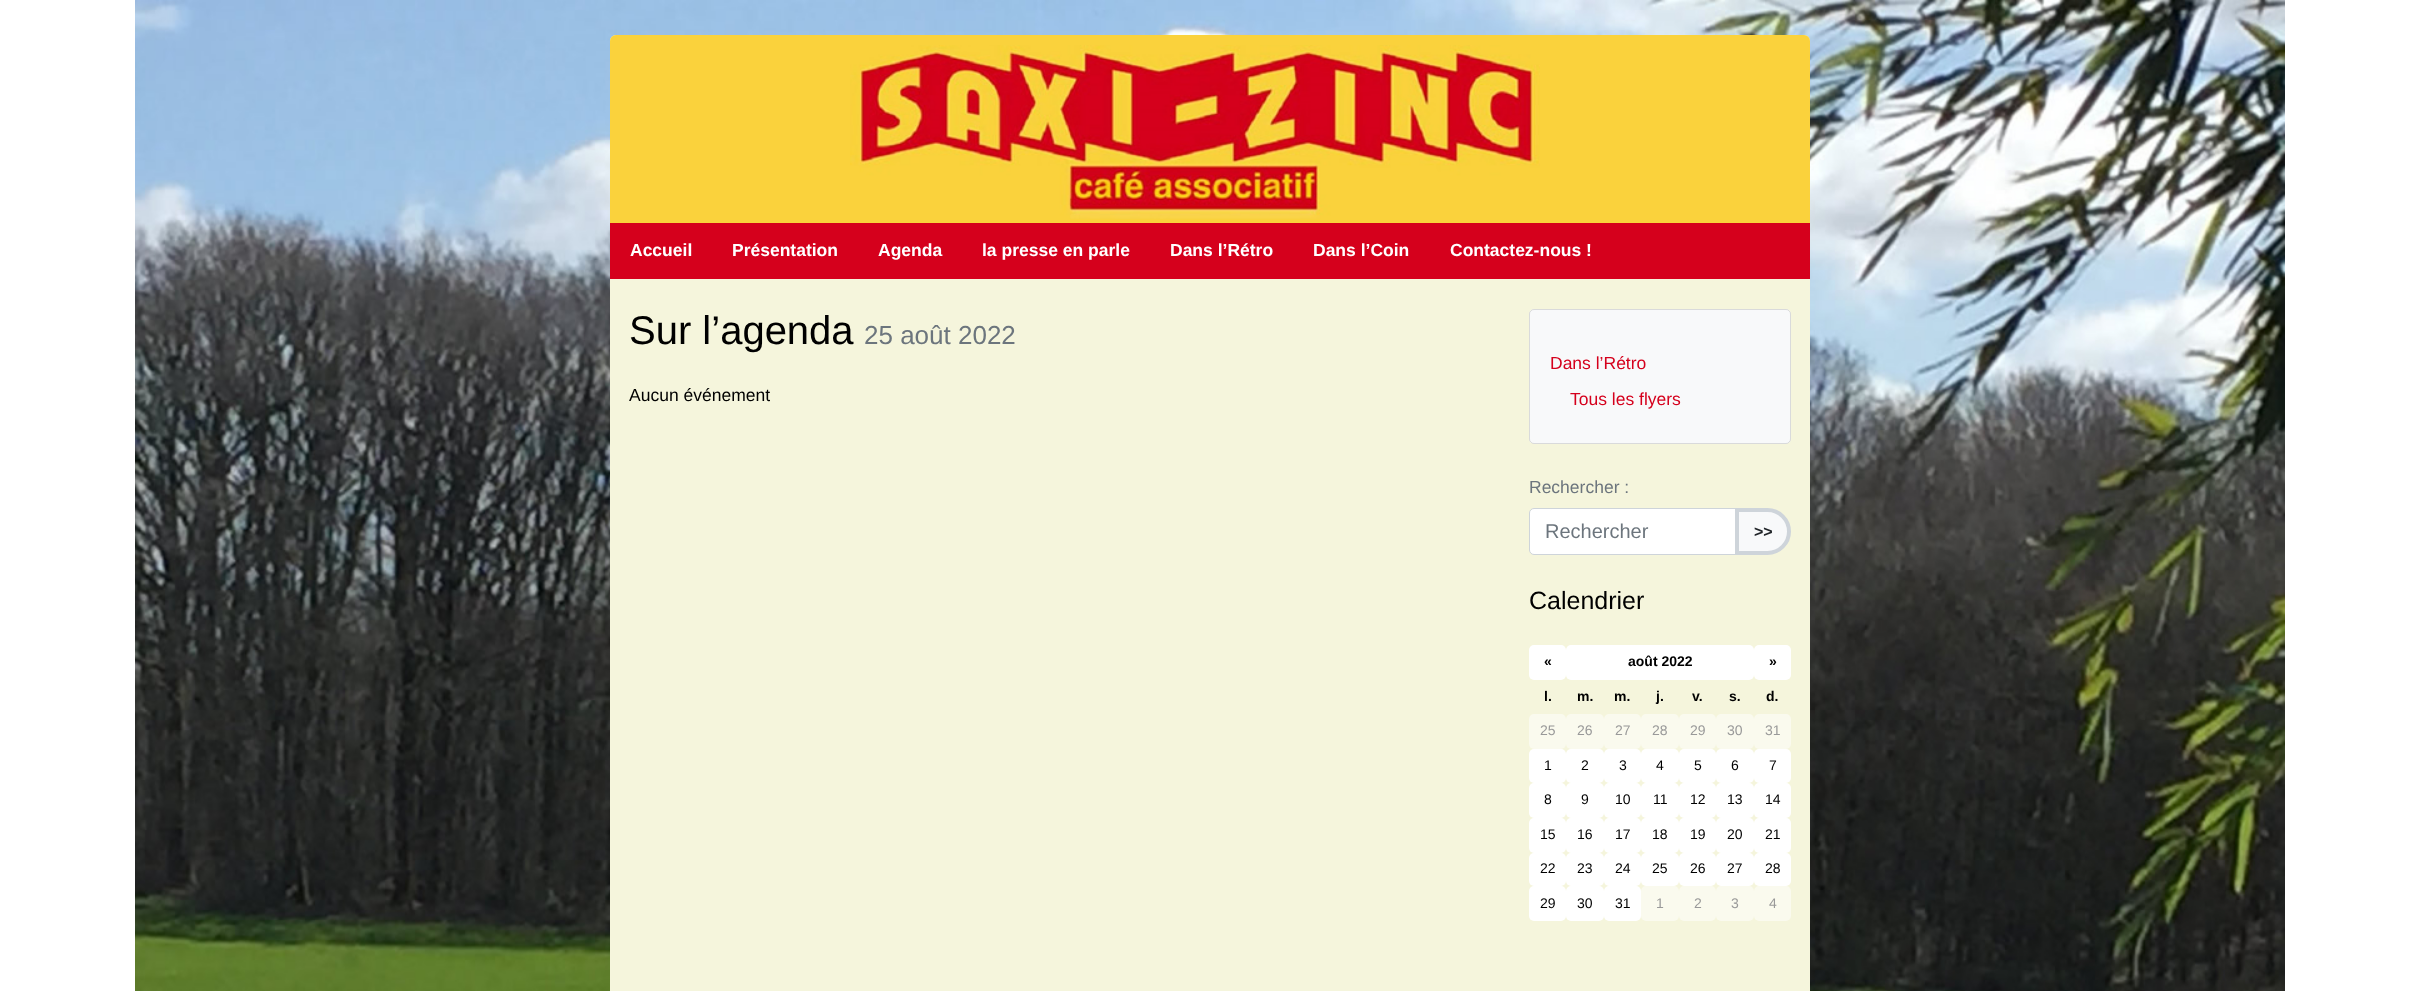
<!DOCTYPE html>
<meta charset="utf-8">
<style>body { margin: 0 } canvas { display: block }</style>
<canvas id="canvas" width="2419" height="991"></canvas>
<img id="img1" src="img_01.png" hidden>
<img id="img2" src="img_02.png" hidden>
<script>
window.onload = function () {
	const canvas = document.getElementById("canvas");
	const ctx = canvas.getContext("2d");
	ctx.miterLimit = 4;
	ctx.fontKerning = "normal";
	function txt(s, x, y) {
		ctx.fillText(s, x, y);
	}
	function fill(x, y, w, h) {
		ctx.fillRect(x, y, w, h);
	}
	function round(x, y, w, h, r) {
		ctx.beginPath();
		ctx.roundRect(x, y, w, h, r);
		ctx.fill();
	}
	function img(id, x, y, w, h) {
		ctx.drawImage(document.getElementById(id), x, y, w, h);
	}

	ctx.fillStyle = "#FFFFFF";
	fill(0, 0, 2419, 991);
	img("img1", 135, 0, 2150, 991);
	ctx.fillStyle = "#F5F5DC";
	round(610, 35, 1200, 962, 6);
	ctx.fillStyle = "#FAD23C";
	ctx.beginPath();
	ctx.roundRect(610, 35, 1200, 188, [6, 6, 0, 0]);
	ctx.fill();
	img("img2", 850, 45, 690, 174);
	ctx.fillStyle = "#D5001C";
	fill(610, 223, 1200, 56);
	ctx.fillStyle = "#F8F9FA";
	round(1529, 309, 262, 135, 5);
	ctx.beginPath();
	ctx.roundRect(1529.5, 309.5, 261, 134, 4.5);
	ctx.strokeStyle = "rgba(0, 0, 0, 0.12)";
	ctx.stroke();
	ctx.fillStyle = "#FFFFFF";
	ctx.beginPath();
	ctx.roundRect(1529.5, 508.5, 206, 46, [4.5, 0, 0, 4.5]);
	ctx.fill();
	ctx.strokeStyle = "#CED4DA";
	ctx.stroke();
	ctx.fillStyle = "#F8F9FA";
	ctx.beginPath();
	ctx.roundRect(1737, 510, 52, 43, [0, 21.5, 21.5, 0]);
	ctx.fill();
	ctx.lineWidth = 4;
	ctx.stroke();
	ctx.fillStyle = "#FFFFFF";
	round(1529, 645, 37, 35, 5);
	round(1566, 645, 188, 35, 5);
	round(1754, 645, 37, 35, 5);
	ctx.fillStyle = "#FAFAEE";
	round(1529, 714, 37, 35, 5);
	round(1566, 714, 38, 35, 5);
	round(1604, 714, 37, 35, 5);
	round(1641, 714, 38, 35, 5);
	round(1679, 714, 37, 35, 5);
	round(1716, 714, 38, 35, 5);
	round(1754, 714, 37, 35, 5);
	ctx.fillStyle = "#FFFFFF";
	round(1529, 749, 37, 34, 5);
	round(1566, 749, 38, 34, 5);
	round(1604, 749, 37, 34, 5);
	round(1641, 749, 38, 34, 5);
	round(1679, 749, 37, 34, 5);
	round(1716, 749, 38, 34, 5);
	round(1754, 749, 37, 34, 5);
	round(1529, 783, 37, 35, 5);
	round(1566, 783, 38, 35, 5);
	round(1604, 783, 37, 35, 5);
	round(1641, 783, 38, 35, 5);
	round(1679, 783, 37, 35, 5);
	round(1716, 783, 38, 35, 5);
	round(1754, 783, 37, 35, 5);
	round(1529, 818, 37, 35, 5);
	round(1566, 818, 38, 35, 5);
	round(1604, 818, 37, 35, 5);
	round(1641, 818, 38, 35, 5);
	round(1679, 818, 37, 35, 5);
	round(1716, 818, 38, 35, 5);
	round(1754, 818, 37, 35, 5);
	round(1529, 853, 37, 33, 5);
	round(1566, 853, 38, 33, 5);
	round(1604, 853, 37, 33, 5);
	round(1641, 853, 38, 33, 5);
	round(1679, 853, 37, 33, 5);
	round(1716, 853, 38, 33, 5);
	round(1754, 853, 37, 33, 5);
	round(1529, 886, 37, 35, 5);
	round(1566, 886, 38, 35, 5);
	round(1604, 886, 37, 35, 5);
	ctx.fillStyle = "#FAFAEE";
	round(1641, 886, 38, 35, 5);
	round(1679, 886, 37, 35, 5);
	round(1716, 886, 38, 35, 5);
	round(1754, 886, 37, 35, 5);
	ctx.font = "bold 17.5px Liberation Sans";
	ctx.fillStyle = "#FFFFFF";
	txt("Accueil", 630, 256);
	txt("Présentation", 732, 256);
	txt("Agenda", 878, 256);
	txt("la presse en parle", 982, 256);
	txt("Dans l’Rétro", 1170, 256);
	txt("Dans l’Coin", 1313, 256);
	txt("Contactez-nous !", 1450, 256);
	ctx.font = "40px Liberation Sans";
	ctx.fillStyle = "#000000";
	txt("Sur l’agenda", 629, 344);
	ctx.font = "26px Liberation Sans";
	ctx.fillStyle = "#6C757D";
	txt("25 août 2022", 864, 344);
	ctx.font = "17.5px Liberation Sans";
	ctx.fillStyle = "#000000";
	txt("Aucun événement", 629, 401);
	ctx.fillStyle = "#D5001C";
	txt("Dans l’Rétro", 1550, 369);
	txt("Tous les flyers", 1570, 405);
	ctx.fillStyle = "#6C757D";
	txt("Rechercher :", 1529, 493);
	ctx.font = "20px Liberation Sans";
	txt("Rechercher", 1545, 538);
	ctx.font = "bold 16px Liberation Sans";
	ctx.fillStyle = "#212529";
	txt(">>", 1754, 537);
	ctx.font = "25px Liberation Sans";
	ctx.fillStyle = "#000000";
	txt("Calendrier", 1529, 609);
	ctx.font = "bold 14px Liberation Sans";
	txt("«", 1544, 666);
	txt("août 2022", 1628, 666);
	txt("»", 1769, 666);
	txt("l.", 1544, 701);
	txt("m.", 1577, 701);
	txt("m.", 1614, 701);
	txt("j.", 1656, 701);
	txt("v.", 1692, 701);
	txt("s.", 1729, 701);
	txt("d.", 1766, 701);
	ctx.font = "14px Liberation Sans";
	ctx.fillStyle = "#999999";
	txt("25", 1540, 735);
	txt("26", 1577, 735);
	txt("27", 1615, 735);
	txt("28", 1652, 735);
	txt("29", 1690, 735);
	txt("30", 1727, 735);
	txt("31", 1765, 735);
	ctx.fillStyle = "#000000";
	txt("1", 1544, 770);
	txt("2", 1581, 770);
	txt("3", 1619, 770);
	txt("4", 1656, 770);
	txt("5", 1694, 770);
	txt("6", 1731, 770);
	txt("7", 1769, 770);
	txt("8", 1544, 804);
	txt("9", 1581, 804);
	txt("10", 1615, 804);
	txt("11", 1653, 804);
	txt("12", 1690, 804);
	txt("13", 1727, 804);
	txt("14", 1765, 804);
	txt("15", 1540, 839);
	txt("16", 1577, 839);
	txt("17", 1615, 839);
	txt("18", 1652, 839);
	txt("19", 1690, 839);
	txt("20", 1727, 839);
	txt("21", 1765, 839);
	txt("22", 1540, 873);
	txt("23", 1577, 873);
	txt("24", 1615, 873);
	txt("25", 1652, 873);
	txt("26", 1690, 873);
	txt("27", 1727, 873);
	txt("28", 1765, 873);
	txt("29", 1540, 908);
	txt("30", 1577, 908);
	txt("31", 1615, 908);
	ctx.fillStyle = "#999999";
	txt("1", 1656, 908);
	txt("2", 1694, 908);
	txt("3", 1731, 908);
	txt("4", 1769, 908);
};
</script>
